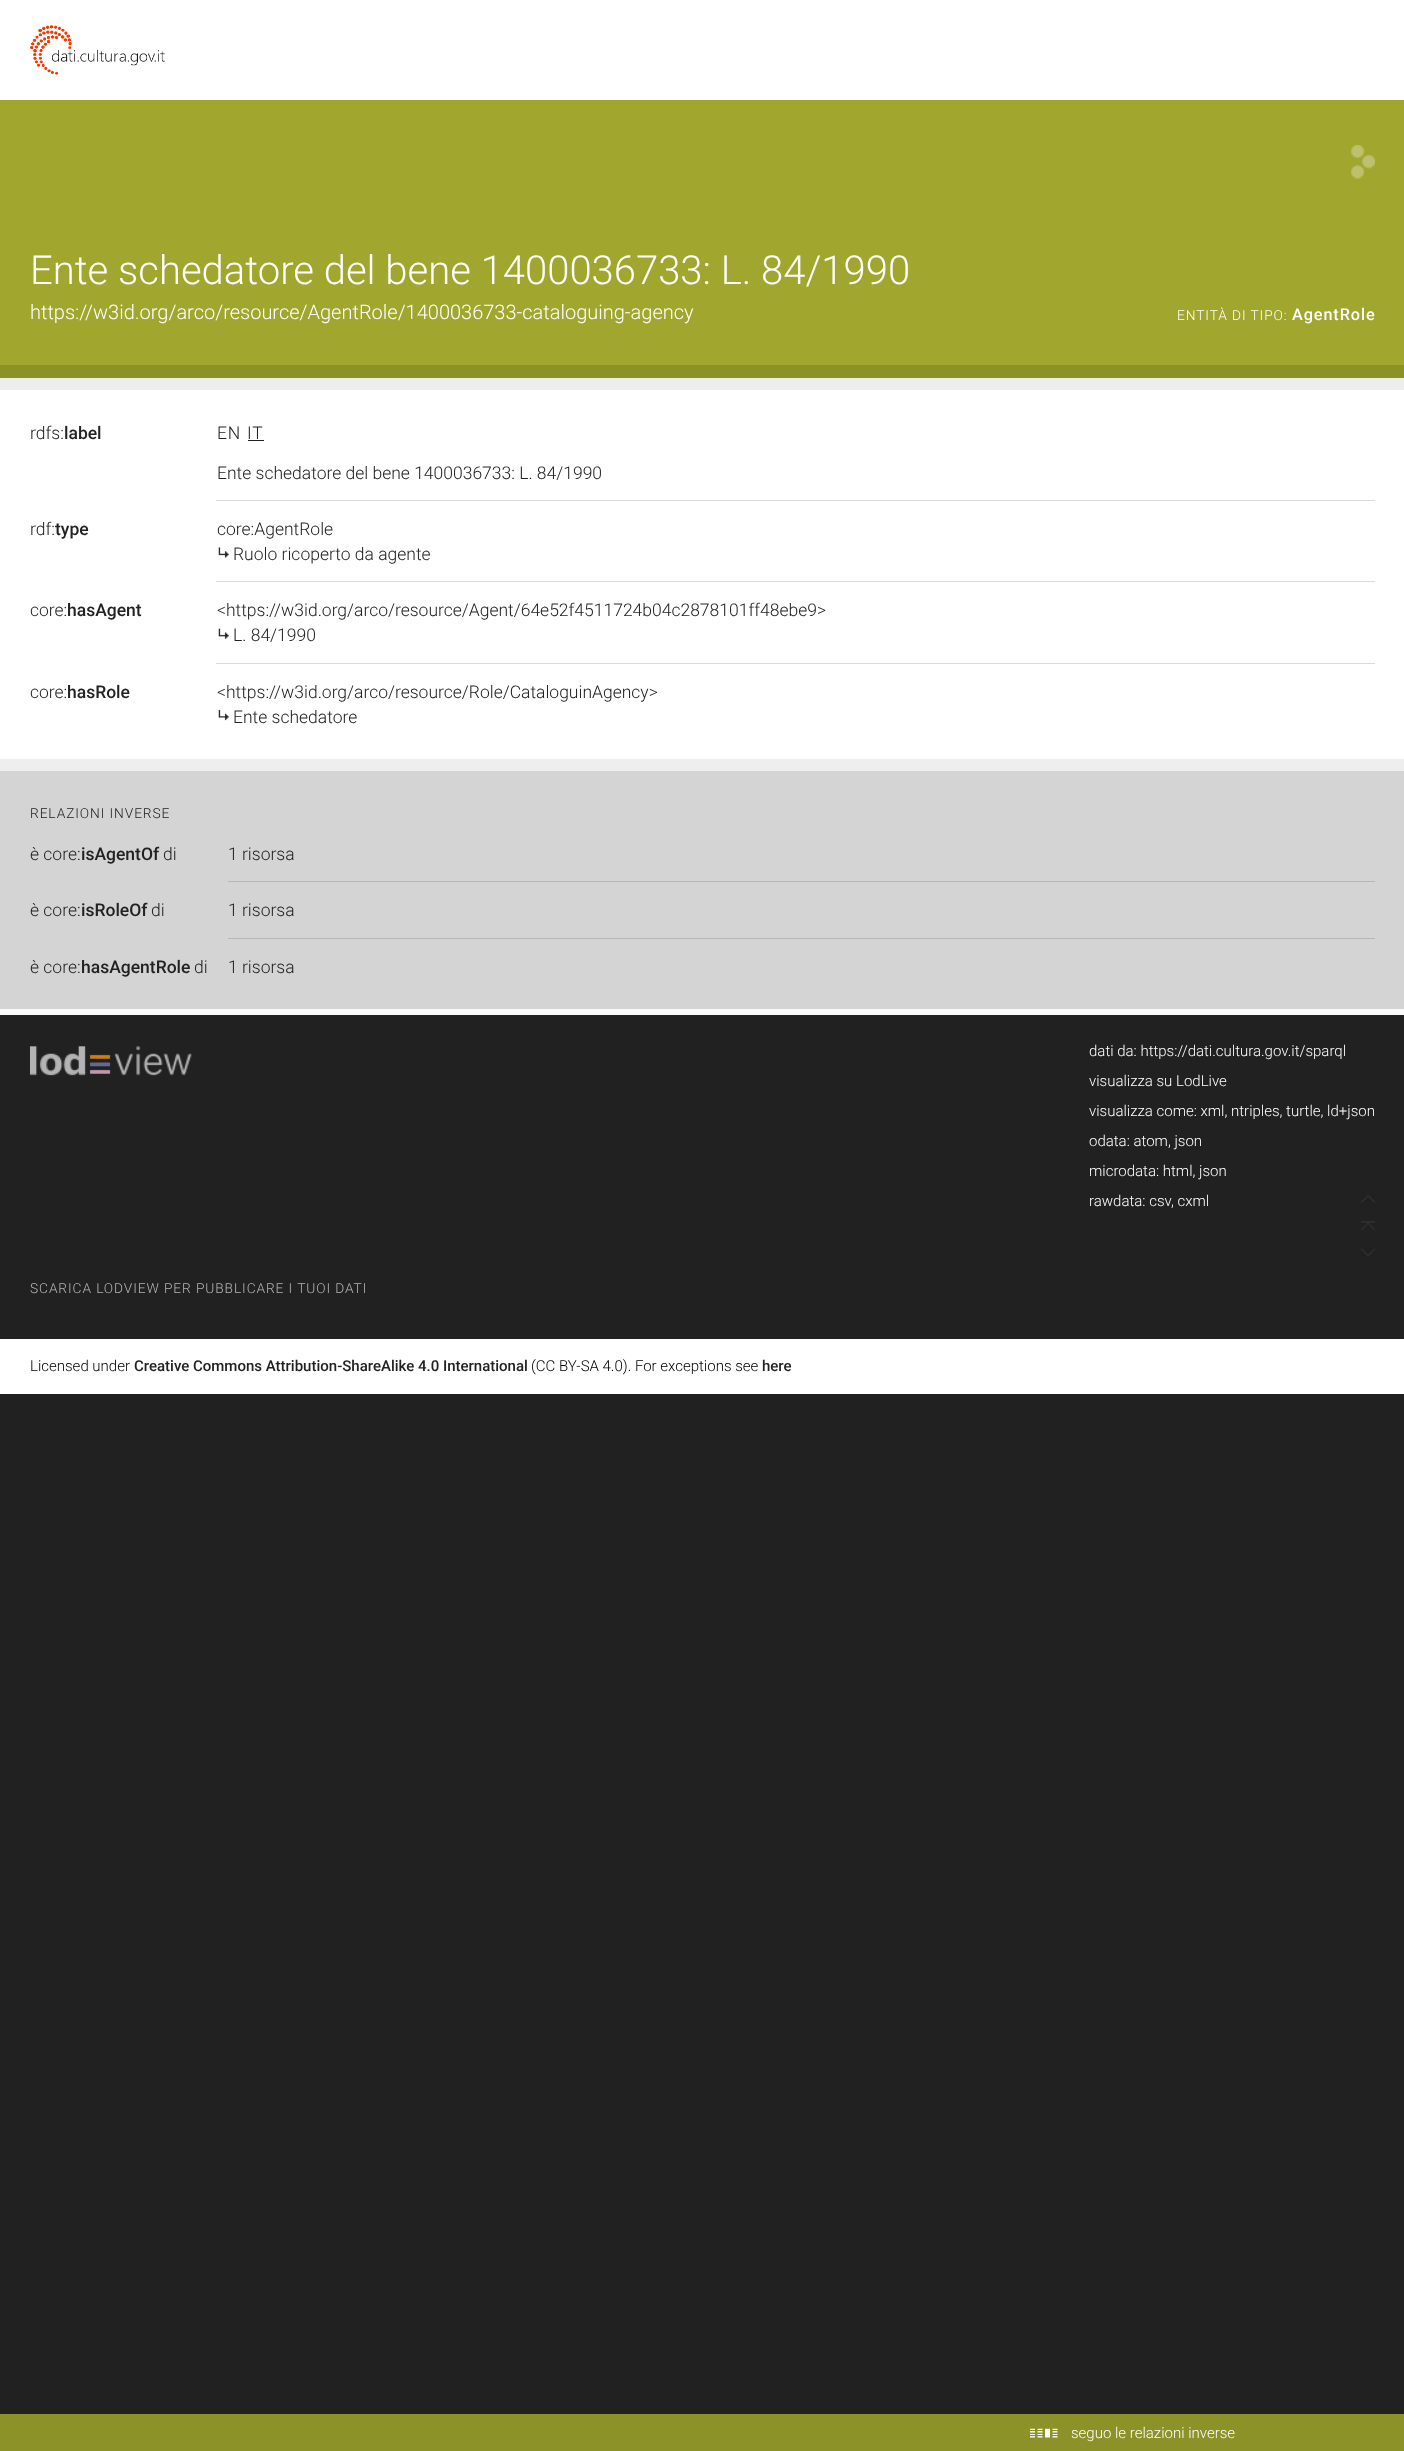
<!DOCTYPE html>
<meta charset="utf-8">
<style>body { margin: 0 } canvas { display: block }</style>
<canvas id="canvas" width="1404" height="2451"></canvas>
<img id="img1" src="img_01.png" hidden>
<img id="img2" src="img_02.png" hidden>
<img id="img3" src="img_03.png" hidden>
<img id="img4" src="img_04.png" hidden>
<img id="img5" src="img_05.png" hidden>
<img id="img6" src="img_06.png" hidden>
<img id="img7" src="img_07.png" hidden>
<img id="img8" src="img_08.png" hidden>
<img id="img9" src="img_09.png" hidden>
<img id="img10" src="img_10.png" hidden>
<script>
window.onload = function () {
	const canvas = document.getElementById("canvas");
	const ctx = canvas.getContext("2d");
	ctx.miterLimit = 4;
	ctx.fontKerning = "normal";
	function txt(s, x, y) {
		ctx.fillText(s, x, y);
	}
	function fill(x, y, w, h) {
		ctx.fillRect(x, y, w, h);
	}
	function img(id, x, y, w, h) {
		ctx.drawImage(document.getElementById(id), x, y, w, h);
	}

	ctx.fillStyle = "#212121";
	fill(0, 0, 1404, 2451);
	ctx.fillStyle = "#FFFFFF";
	fill(0, 0, 1404, 100);
	img("img1", 30, 25, 135, 50);
	ctx.fillStyle = "#A1A72E";
	fill(0, 100, 1404, 265);
	img("img2", 1351, 145, 24, 34);
	ctx.fillStyle = "#8C9128";
	fill(0, 365, 1404, 13);
	ctx.fillStyle = "#EEEEEE";
	fill(0, 378, 1404, 12);
	ctx.fillStyle = "#FFFFFF";
	fill(0, 390, 1404, 369);
	ctx.fillStyle = "#DBDBDB";
	fill(216, 500, 1159, 1);
	ctx.fillStyle = "#212121";
	fill(248, 440, 16, 1);
	ctx.fillStyle = "#DBDBDB";
	fill(216, 581, 1159, 1);
	img("img3", 218, 547, 11, 11);
	fill(216, 663, 1159, 1);
	img("img4", 218, 628, 11, 11);
	img("img5", 218, 710, 11, 11);
	ctx.fillStyle = "#EEEEEE";
	fill(0, 759, 1404, 12);
	ctx.fillStyle = "#D4D4D4";
	fill(0, 771, 1404, 238);
	ctx.fillStyle = "#B6B6B6";
	fill(228, 881, 1147, 1);
	fill(228, 938, 1147, 1);
	ctx.fillStyle = "#FAFAFA";
	fill(0, 1009, 1404, 6);
	img("img6", 30, 1046, 162, 30);
	img("img7", 1361, 1195, 14, 8);
	img("img8", 1361, 1221, 14, 9);
	img("img9", 1361, 1248, 14, 9);
	ctx.fillStyle = "#FFFFFF";
	fill(0, 1339, 1404, 55);
	ctx.fillStyle = "#8C9128";
	fill(0, 2414, 1404, 37);
	img("img10", 1030, 2428, 28, 10);
	ctx.font = "300 40px Roboto";
	ctx.fillStyle = "#FFFFFF";
	txt("Ente schedatore del bene 1400036733: L. 84/1990", 30, 284);
	ctx.font = "300 20px Roboto";
	txt("https://w3id.org/arco/resource/AgentRole/1400036733-cataloguing-agency", 30, 319);
	ctx.letterSpacing = "0.9px";
	ctx.font = "300 13.75px Roboto";
	txt("ENTITÀ DI TIPO:", 1177, 320);
	ctx.font = "500 16.25px Roboto";
	txt("AgentRole", 1292, 320);
	ctx.letterSpacing = "0px";
	ctx.font = "300 17.5px Roboto";
	ctx.fillStyle = "#222222";
	txt("rdfs:", 30, 439);
	ctx.font = "500 17.5px Roboto";
	txt("label", 64, 439);
	ctx.letterSpacing = "0.9px";
	ctx.font = "300 17.5px Roboto";
	txt("EN", 217, 439);
	txt("IT", 247, 439);
	ctx.letterSpacing = "0px";
	txt("Ente schedatore del bene 1400036733: L. 84/1990", 217, 479);
	txt("rdf:", 30, 535);
	ctx.font = "500 17.5px Roboto";
	txt("type", 55, 535);
	ctx.font = "300 17.5px Roboto";
	txt("core:AgentRole", 217, 535);
	txt("Ruolo ricoperto da agente", 233, 560);
	txt("core:", 30, 616);
	ctx.font = "500 17.5px Roboto";
	txt("hasAgent", 67, 616);
	ctx.font = "300 17.5px Roboto";
	txt("<https://w3id.org/arco/resource/Agent/64e52f4511724b04c2878101ff48ebe9>", 217, 616);
	txt("L. 84/1990", 233, 641);
	txt("core:", 30, 698);
	ctx.font = "500 17.5px Roboto";
	txt("hasRole", 67, 698);
	ctx.font = "300 17.5px Roboto";
	txt("<https://w3id.org/arco/resource/Role/CataloguinAgency>", 217, 698);
	txt("Ente schedatore", 233, 723);
	ctx.letterSpacing = "0.9px";
	ctx.font = "300 13.75px Roboto";
	txt("RELAZIONI INVERSE", 30, 818);
	ctx.letterSpacing = "0px";
	ctx.font = "300 17.5px Roboto";
	txt("è core:", 30, 860);
	ctx.font = "500 17.5px Roboto";
	txt("isAgentOf", 81, 860);
	ctx.font = "300 17.5px Roboto";
	txt("di", 163, 860);
	txt("1 risorsa", 228, 860);
	txt("è core:", 30, 916);
	ctx.font = "500 17.5px Roboto";
	txt("isRoleOf", 81, 916);
	ctx.font = "300 17.5px Roboto";
	txt("di", 151, 916);
	txt("1 risorsa", 228, 916);
	txt("è core:", 30, 973);
	ctx.font = "500 17.5px Roboto";
	txt("hasAgentRole", 81, 973);
	ctx.font = "300 17.5px Roboto";
	txt("di", 194, 973);
	txt("1 risorsa", 228, 973);
	ctx.font = "300 15px Roboto";
	ctx.fillStyle = "#FFFFFF";
	txt("dati da: https://dati.cultura.gov.it/sparql", 1089, 1056);
	txt("visualizza su LodLive", 1089, 1086);
	txt("visualizza come: xml, ntriples, turtle, ld+json", 1089, 1116);
	txt("odata: atom, json", 1089, 1146);
	txt("microdata: html, json", 1089, 1176);
	txt("rawdata: csv", 1089, 1206);
	txt(", cxml", 1171, 1206);
	ctx.letterSpacing = "0.9px";
	ctx.font = "300 13.75px Roboto";
	ctx.fillStyle = "#B4B4B4";
	txt("SCARICA LODVIEW PER PUBBLICARE I TUOI DATI", 30, 1293);
	ctx.letterSpacing = "0px";
	ctx.font = "300 15px Roboto";
	ctx.fillStyle = "#000000";
	txt("Licensed under", 30, 1371);
	ctx.font = "500 15px Roboto";
	ctx.fillStyle = "#222222";
	txt("Creative Commons Attribution-ShareAlike 4.0 International", 134, 1371);
	ctx.font = "300 15px Roboto";
	ctx.fillStyle = "#000000";
	txt("(CC BY-SA 4.0). For exceptions see", 531, 1371);
	ctx.font = "500 15px Roboto";
	ctx.fillStyle = "#222222";
	txt("here", 762, 1371);
	ctx.font = "300 15px Roboto";
	ctx.fillStyle = "#FFFFFF";
	txt("seguo le relazioni inverse", 1071, 2438);
};
</script>
